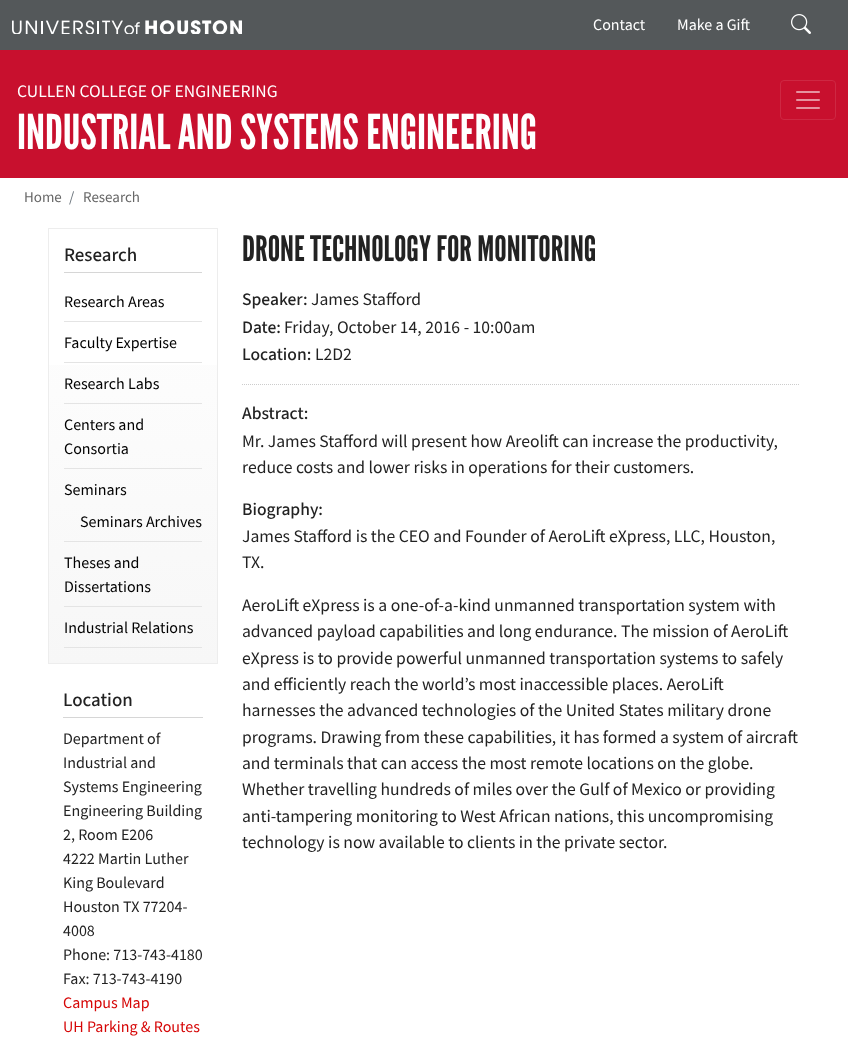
<!DOCTYPE html>
<meta charset="utf-8">
<style>body { margin: 0 } canvas { display: block }</style>
<canvas id="canvas" width="848" height="1037"></canvas>
<img id="img1" src="img_01.png" hidden>
<img id="img2" src="img_02.png" hidden>
<img id="img3" src="img_03.png" hidden>
<script>
window.onload = function () {
	const canvas = document.getElementById("canvas");
	const ctx = canvas.getContext("2d");
	ctx.miterLimit = 4;
	ctx.fontKerning = "normal";
	function txt(s, x, y) {
		ctx.fillText(s, x, y);
	}
	function fill(x, y, w, h) {
		ctx.fillRect(x, y, w, h);
	}
	function img(id, x, y, w, h) {
		ctx.drawImage(document.getElementById(id), x, y, w, h);
	}
	let gradient;

	ctx.fillStyle = "#FFFFFF";
	fill(0, 0, 848, 1037);
	ctx.fillStyle = "#54585A";
	fill(0, 0, 848, 50);
	img("img1", 12, 20, 230, 14);
	img("img2", 791, 14, 20, 20);
	ctx.fillStyle = "#C8102E";
	fill(0, 50, 848, 128);
	ctx.beginPath();
	ctx.roundRect(780.5, 80.5, 55, 39, 3.5);
	ctx.strokeStyle = "#CE2843";
	ctx.stroke();
	img("img3", 796, 91, 24, 18);
	gradient = ctx.createLinearGradient(133, 663, 133, 229);
	gradient.addColorStop(0, "#F7F7F7");
	gradient.addColorStop(1, "#FFFFFF");
	ctx.fillStyle = gradient;
	fill(49, 365, 168, 298);
	ctx.strokeStyle = "#EDEDED";
	ctx.strokeRect(48.5, 228.5, 169, 435);
	ctx.fillStyle = "#D6D6D6";
	fill(64, 272, 138, 1);
	ctx.fillStyle = "#E4E4E4";
	fill(64, 321, 138, 1);
	fill(64, 362, 138, 1);
	fill(64, 403, 138, 1);
	fill(64, 468, 138, 1);
	fill(64, 541, 138, 1);
	fill(64, 606, 138, 1);
	fill(64, 647, 138, 1);
	ctx.fillStyle = "#D6D6D6";
	fill(63, 717, 140, 1);
	ctx.beginPath();
	ctx.moveTo(242, 384.5);
	ctx.lineTo(800, 384.5);
	ctx.strokeStyle = "#CCCCCC";
	ctx.setLineDash([1, 1]);
	ctx.stroke();
	ctx.font = "16px Source Sans Pro";
	ctx.fillStyle = "#FFFFFF";
	txt("Contact", 593, 30);
	txt("Make a Gift", 677, 30);
	ctx.font = "17.6px Source Sans Pro";
	txt("CULLEN COLLEGE OF ENGINEERING", 17, 97);
	ctx.font = "48px League Gothic";
	txt("INDUSTRIAL AND SYSTEMS ENGINEERING", 17, 149);
	ctx.font = "15px Source Sans Pro";
	ctx.fillStyle = "#666666";
	txt("Home", 24, 202);
	ctx.fillStyle = "#6C757D";
	txt("/", 69, 202);
	ctx.fillStyle = "#666666";
	txt("Research", 83, 202);
	ctx.font = "500 19px 'Source Sans 3'";
	ctx.fillStyle = "#222222";
	txt("Research", 64, 261);
	ctx.font = "16px Source Sans Pro";
	ctx.fillStyle = "#000000";
	txt("Research Areas", 64, 307);
	txt("Faculty Expertise", 64, 348);
	txt("Research Labs", 64, 389);
	txt("Centers and", 64, 430);
	txt("Consortia", 64, 454);
	txt("Seminars", 64, 495);
	txt("Seminars Archives", 80, 527);
	txt("Theses and", 64, 568);
	txt("Dissertations", 64, 592);
	txt("Industrial Relations", 64, 633);
	ctx.font = "500 19px 'Source Sans 3'";
	ctx.fillStyle = "#222222";
	txt("Location", 63, 706);
	ctx.font = "16px Source Sans Pro";
	txt("Department of", 63, 744);
	txt("Industrial and", 63, 768);
	txt("Systems Engineering", 63, 792);
	txt("Engineering Building", 63, 816);
	txt("2, Room E206", 63, 840);
	txt("4222 Martin Luther", 63, 864);
	txt("King Boulevard", 63, 888);
	txt("Houston TX 77204-", 63, 912);
	txt("4008", 63, 936);
	txt("Phone: 713-743-4180", 63, 960);
	txt("Fax: 713-743-4190", 63, 984);
	ctx.fillStyle = "#D60606";
	txt("Campus Map", 63, 1008);
	txt("UH Parking & Routes", 63, 1032);
	ctx.font = "35.1px League Gothic";
	ctx.fillStyle = "#222222";
	txt("DRONE TECHNOLOGY FOR MONITORING", 242, 261);
	ctx.font = "500 17.6px 'Source Sans 3'";
	txt("Speaker", 242, 305);
	txt(":", 303, 305);
	ctx.font = "17.6px Source Sans Pro";
	txt("James Stafford", 311, 305);
	ctx.font = "500 17.6px 'Source Sans 3'";
	txt("Date:", 242, 333);
	ctx.font = "17.6px Source Sans Pro";
	txt("Friday, October 14, 2016 - 10:00am", 284, 333);
	ctx.font = "500 17.6px 'Source Sans 3'";
	txt("Location:", 242, 360);
	ctx.font = "17.6px Source Sans Pro";
	txt("L2D2", 315, 360);
	ctx.font = "500 17.6px 'Source Sans 3'";
	txt("Abstract:", 242, 419);
	ctx.font = "17.6px Source Sans Pro";
	txt("Mr. James Stafford will present how Areolift can increase the productivity,", 242, 447);
	txt("reduce costs and lower risks in operations for their customers.", 242, 473);
	ctx.font = "500 17.6px 'Source Sans 3'";
	txt("Biography:", 242, 515);
	ctx.font = "17.6px Source Sans Pro";
	txt("James Stafford is the CEO and Founder of AeroLift eXpress, LLC, Houston,", 242, 542);
	txt("TX.", 242, 568);
	txt("AeroLift eXpress is a one-of-a-kind unmanned transportation system with", 242, 611);
	txt("advanced payload capabilities and long endurance. The mission of AeroLift", 242, 637);
	txt("eXpress is to provide powerful unmanned transportation systems to safely", 242, 664);
	txt("and efficiently reach the world’s most inaccessible places. AeroLift", 242, 690);
	txt("harnesses the advanced technologies of the United States military drone", 242, 716);
	txt("programs. Drawing from these capabilities, it has formed a system of aircraft", 242, 743);
	txt("and terminals that can access the most remote locations on the globe.", 242, 769);
	txt("Whether travelling hundreds of miles over the Gulf of Mexico or providing", 242, 795);
	txt("anti-tampering monitoring to West African nations, this uncompromising", 242, 822);
	txt("technology is now available to clients in the private sector.", 242, 848);
};
</script>
